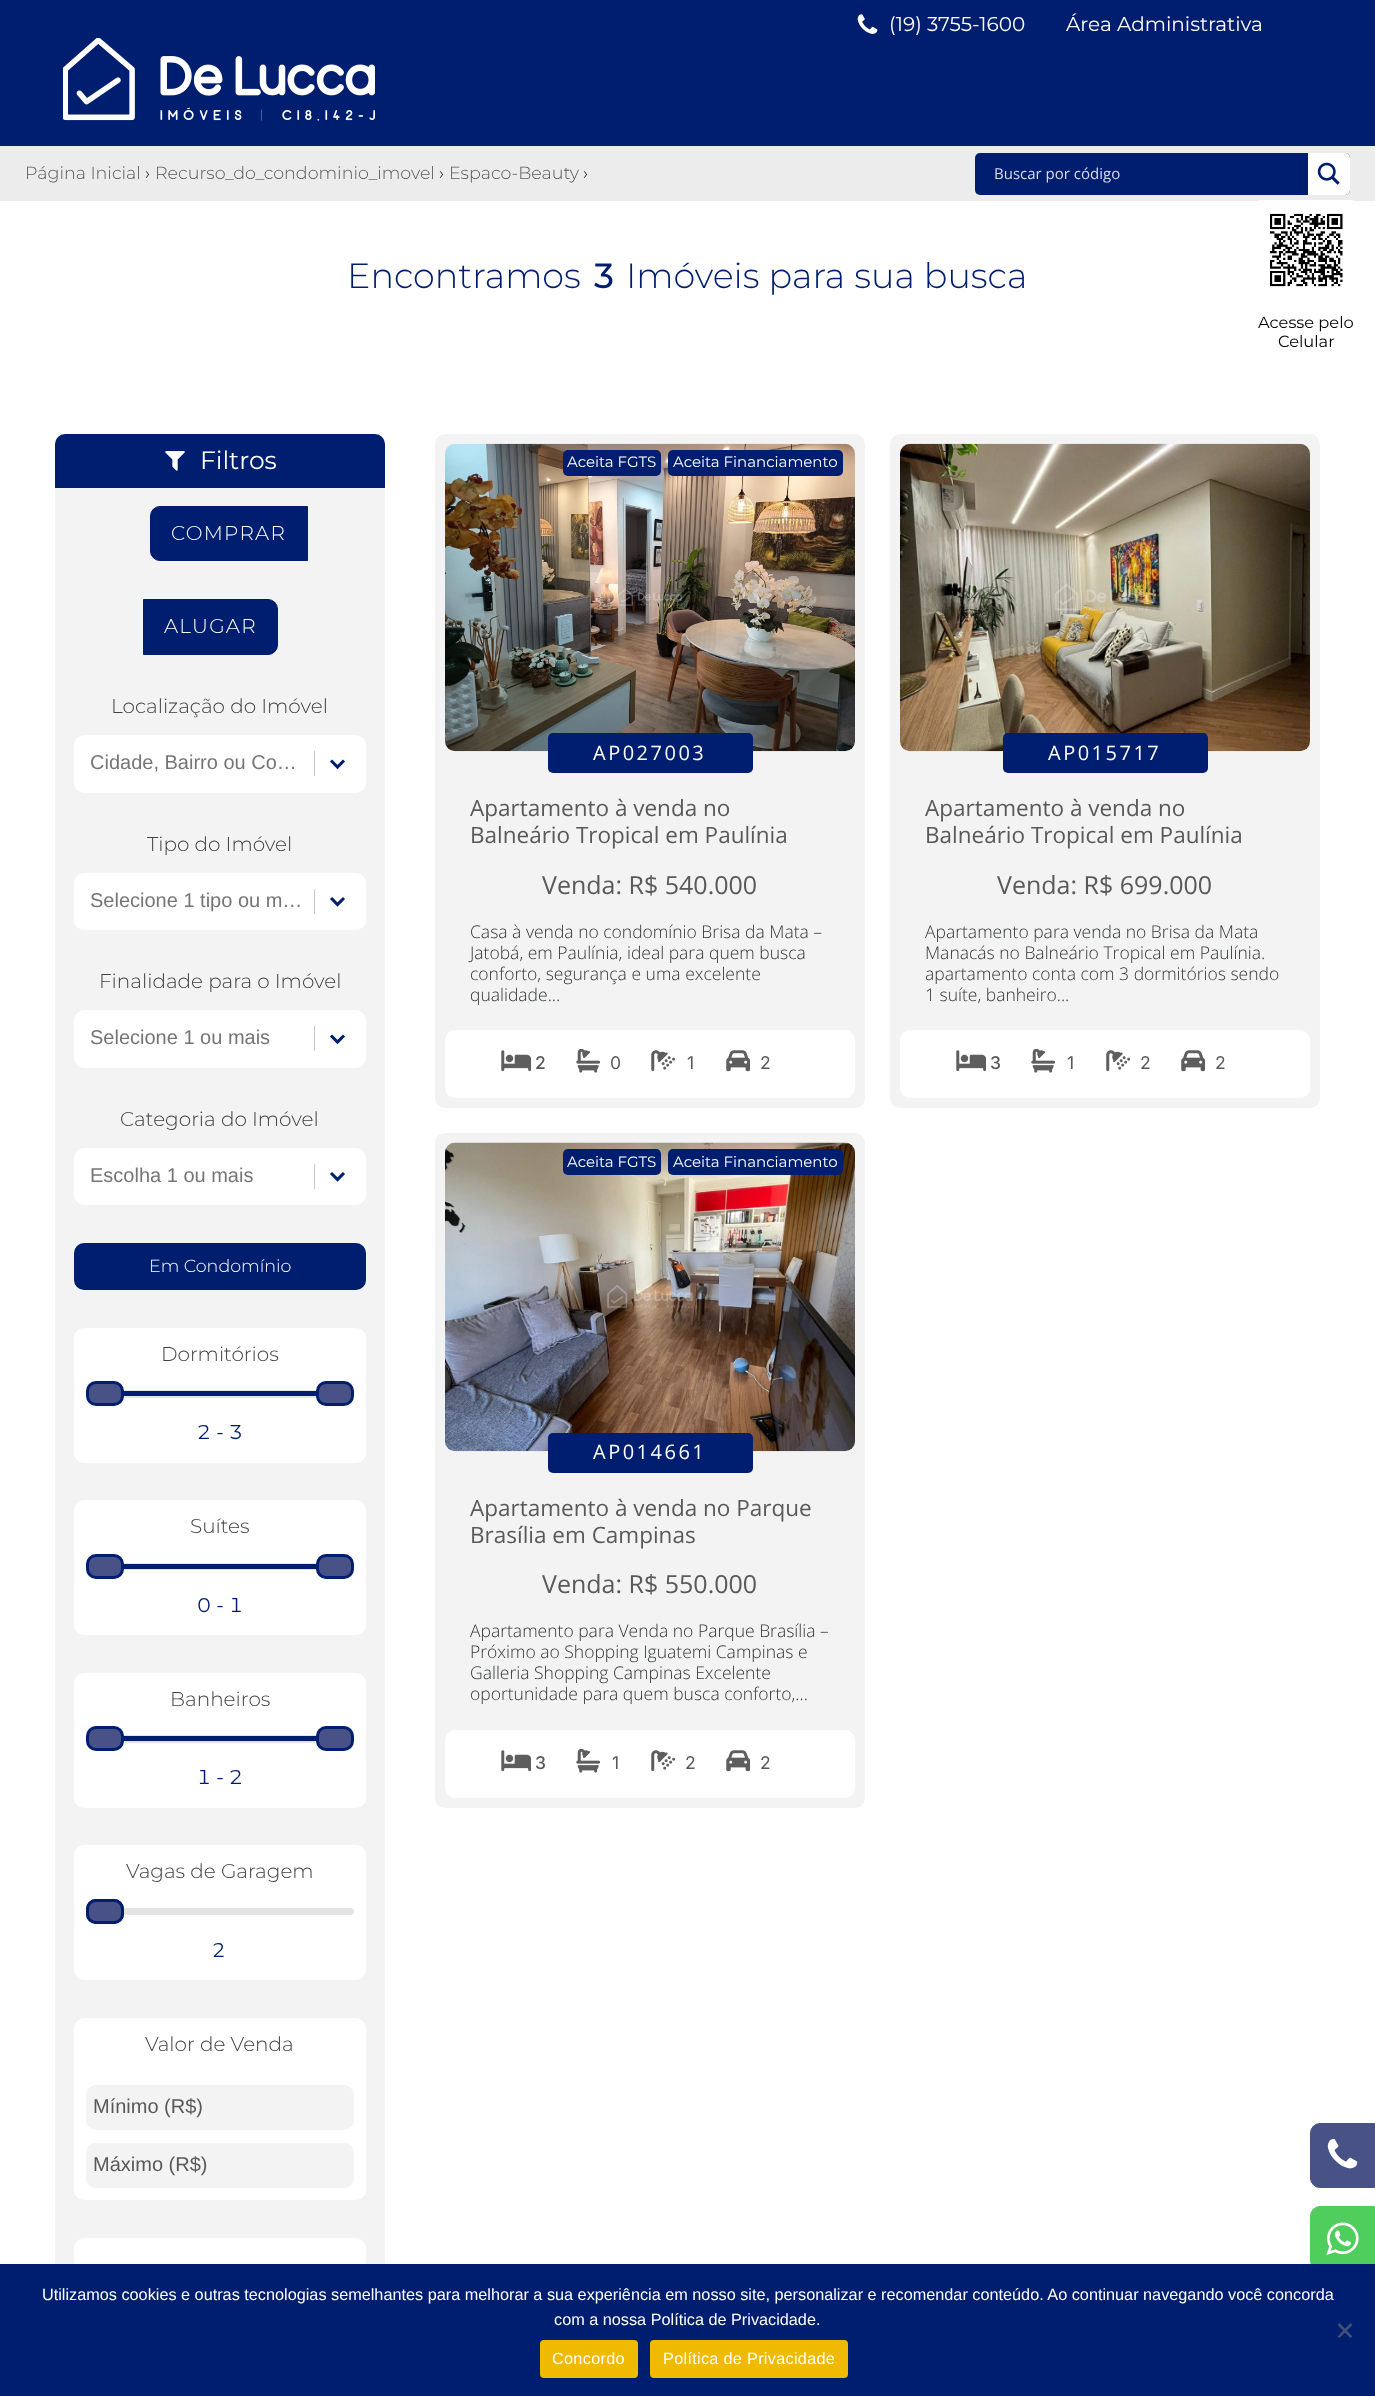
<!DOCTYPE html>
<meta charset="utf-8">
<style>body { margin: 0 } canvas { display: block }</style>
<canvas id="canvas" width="1375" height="2396"></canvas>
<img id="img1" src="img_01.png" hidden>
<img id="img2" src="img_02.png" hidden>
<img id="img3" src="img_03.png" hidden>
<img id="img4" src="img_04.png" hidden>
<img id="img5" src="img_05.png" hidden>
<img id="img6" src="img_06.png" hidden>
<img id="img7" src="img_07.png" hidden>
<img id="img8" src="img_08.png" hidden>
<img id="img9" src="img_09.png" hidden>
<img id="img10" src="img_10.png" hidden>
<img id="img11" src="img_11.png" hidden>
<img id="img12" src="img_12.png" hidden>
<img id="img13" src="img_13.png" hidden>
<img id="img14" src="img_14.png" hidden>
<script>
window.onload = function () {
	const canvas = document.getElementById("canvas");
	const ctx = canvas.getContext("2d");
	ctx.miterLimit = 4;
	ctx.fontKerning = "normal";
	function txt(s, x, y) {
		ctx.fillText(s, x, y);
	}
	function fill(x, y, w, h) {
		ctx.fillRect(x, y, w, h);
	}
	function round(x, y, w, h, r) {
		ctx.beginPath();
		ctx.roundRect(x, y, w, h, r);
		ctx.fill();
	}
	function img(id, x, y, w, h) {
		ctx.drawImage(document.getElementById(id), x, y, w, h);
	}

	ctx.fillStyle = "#FFFFFF";
	fill(0, 0, 1375, 2396);
	ctx.fillStyle = "#ECECEC";
	fill(0, 146, 1375, 55);
	ctx.fillStyle = "#001E6F";
	round(975, 153, 375, 42, 5);
	ctx.fillStyle = "#FFFFFF";
	ctx.beginPath();
	ctx.roundRect(1308, 153, 42, 42, [0, 5, 5, 0]);
	ctx.fill();
	img("img1", 1317, 162, 23, 23);
	ctx.fillStyle = "#001E6F";
	fill(0, 0, 1375, 146);
	img("img2", 857, 14, 21, 20);
	img("img3", 63, 38, 312, 83);
	ctx.fillStyle = "#FFFFFF";
	round(1256, 200, 100, 100, 5);
	img("img4", 1270, 213, 73, 74);
	ctx.fillStyle = "#001E6F";
	ctx.beginPath();
	ctx.roundRect(55, 434, 330, 54, [10, 10, 0, 0]);
	ctx.fill();
	img("img5", 165, 451, 20, 20);
	ctx.fillStyle = "#F3F3F3";
	fill(55, 488, 330, 1776);
	ctx.fillStyle = "#001E6F";
	ctx.beginPath();
	ctx.roundRect(150.5, 506.5, 157, 54, [9.5, 0, 0, 9.5]);
	ctx.fill();
	ctx.strokeStyle = "#001E6F";
	ctx.stroke();
	ctx.beginPath();
	ctx.roundRect(143.5, 599.5, 134, 55, [0, 9.5, 9.5, 0]);
	ctx.fill();
	ctx.stroke();
	ctx.fillStyle = "#FFFFFF";
	round(74, 735, 292, 58, 10);
	ctx.fillStyle = "#C8C8C8";
	fill(314, 751, 1, 25);
	ctx.beginPath();
	ctx.moveTo(337.5, 767);
	ctx.lineTo(331, 760.5);
	ctx.lineTo(337.5, 767);
	ctx.lineTo(344, 760.5);
	ctx.closePath();
	ctx.lineWidth = 3.1;
	ctx.stroke();
	ctx.fillStyle = "#FFFFFF";
	round(74, 873, 292, 57, 10);
	ctx.fillStyle = "#C8C8C8";
	fill(314, 889, 1, 25);
	ctx.beginPath();
	ctx.moveTo(337.5, 904.5);
	ctx.lineTo(331, 898);
	ctx.lineTo(337.5, 904.5);
	ctx.lineTo(344, 898);
	ctx.closePath();
	ctx.stroke();
	ctx.fillStyle = "#FFFFFF";
	round(74, 1010, 292, 58, 10);
	ctx.fillStyle = "#C8C8C8";
	fill(314, 1026, 1, 25);
	ctx.beginPath();
	ctx.moveTo(337.5, 1042);
	ctx.lineTo(331, 1035.5);
	ctx.lineTo(337.5, 1042);
	ctx.lineTo(344, 1035.5);
	ctx.closePath();
	ctx.stroke();
	ctx.fillStyle = "#FFFFFF";
	round(74, 1148, 292, 57, 10);
	ctx.fillStyle = "#C8C8C8";
	fill(314, 1164, 1, 25);
	ctx.beginPath();
	ctx.moveTo(337.5, 1179.5);
	ctx.lineTo(331, 1173);
	ctx.lineTo(337.5, 1179.5);
	ctx.lineTo(344, 1173);
	ctx.closePath();
	ctx.stroke();
	ctx.fillStyle = "#001E6F";
	round(74, 1243, 292, 47, 10);
	ctx.fillStyle = "#FFFFFF";
	round(74, 1328, 292, 135, 10);
	ctx.fillStyle = "#E4E4E4";
	round(86, 1390, 268, 8, 4);
	ctx.fillStyle = "#485287";
	ctx.beginPath();
	ctx.roundRect(87.5, 1382.5, 35, 22, 8.5);
	ctx.fill();
	ctx.lineWidth = 3;
	ctx.stroke();
	ctx.beginPath();
	ctx.roundRect(317.5, 1382.5, 35, 22, 8.5);
	ctx.fill();
	ctx.stroke();
	ctx.fillStyle = "#001E6F";
	fill(124, 1391, 192, 5);
	ctx.fillStyle = "#FFFFFF";
	round(74, 1500, 292, 135, 10);
	ctx.fillStyle = "#E4E4E4";
	round(86, 1563, 268, 7, 3.5);
	ctx.fillStyle = "#485287";
	ctx.beginPath();
	ctx.roundRect(87.5, 1555.5, 35, 22, 8.5);
	ctx.fill();
	ctx.stroke();
	ctx.beginPath();
	ctx.roundRect(317.5, 1555.5, 35, 22, 8.5);
	ctx.fill();
	ctx.stroke();
	ctx.fillStyle = "#001E6F";
	fill(124, 1564, 192, 5);
	ctx.fillStyle = "#FFFFFF";
	round(74, 1673, 292, 135, 10);
	ctx.fillStyle = "#E4E4E4";
	round(86, 1735, 268, 8, 4);
	ctx.fillStyle = "#485287";
	ctx.beginPath();
	ctx.roundRect(87.5, 1727.5, 35, 22, 8.5);
	ctx.fill();
	ctx.stroke();
	ctx.beginPath();
	ctx.roundRect(317.5, 1727.5, 35, 22, 8.5);
	ctx.fill();
	ctx.stroke();
	ctx.fillStyle = "#001E6F";
	fill(124, 1736, 192, 5);
	ctx.fillStyle = "#FFFFFF";
	round(74, 1845, 292, 135, 10);
	ctx.fillStyle = "#E4E4E4";
	round(86, 1908, 268, 7, 3.5);
	ctx.beginPath();
	ctx.roundRect(87.5, 1900.5, 35, 22, 8.5);
	ctx.stroke();
	ctx.fillStyle = "#485287";
	ctx.beginPath();
	ctx.roundRect(87.5, 1900.5, 35, 22, 8.5);
	ctx.fill();
	ctx.stroke();
	ctx.fillStyle = "#FFFFFF";
	round(74, 2018, 292, 182, 10);
	ctx.fillStyle = "#F3F3F3";
	round(86, 2085, 268, 45, 10);
	round(86, 2143, 268, 45, 10);
	ctx.fillStyle = "#FFFFFF";
	round(74, 2238, 292, 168, 10);
	ctx.fillStyle = "#F3F3F3";
	ctx.beginPath();
	ctx.roundRect(440, 439, 420, 664, 5);
	ctx.fill();
	ctx.strokeStyle = "#F3F3F3";
	ctx.lineWidth = 10;
	ctx.stroke();
	img("img6", 445, 443, 410, 309);
	ctx.fillStyle = "#001E6F";
	round(563, 450, 98, 26, 5);
	round(668, 450, 175, 26, 5);
	round(548, 733, 205, 40, 5);
	ctx.fillStyle = "#FFFFFF";
	round(445, 1030, 410, 68, 10);
	img("img7", 501, 1050, 30, 22);
	img("img8", 576, 1049, 24, 24);
	img("img9", 651, 1050, 24, 22);
	img("img10", 726, 1050, 24, 22);
	ctx.fillStyle = "#F3F3F3";
	ctx.beginPath();
	ctx.roundRect(895, 439, 420, 664, 5);
	ctx.fill();
	ctx.stroke();
	img("img11", 900, 443, 410, 309);
	ctx.fillStyle = "#001E6F";
	round(1003, 733, 205, 40, 5);
	ctx.fillStyle = "#FFFFFF";
	round(900, 1030, 410, 68, 10);
	img("img7", 956, 1050, 30, 22);
	img("img8", 1031, 1049, 24, 24);
	img("img9", 1106, 1050, 24, 22);
	img("img10", 1181, 1050, 24, 22);
	ctx.fillStyle = "#F3F3F3";
	ctx.beginPath();
	ctx.roundRect(440, 1138, 420, 665, 5);
	ctx.fill();
	ctx.stroke();
	img("img12", 445, 1142, 410, 310);
	ctx.fillStyle = "#001E6F";
	round(563, 1149, 98, 26, 5);
	round(668, 1149, 175, 26, 5);
	round(548, 1433, 205, 40, 5);
	ctx.fillStyle = "#FFFFFF";
	round(445, 1730, 410, 68, 10);
	img("img7", 501, 1750, 30, 22);
	img("img8", 576, 1749, 24, 24);
	img("img9", 651, 1750, 24, 22);
	img("img10", 726, 1750, 24, 22);
	ctx.fillStyle = "#485287";
	ctx.beginPath();
	ctx.roundRect(1310.5, 2123.5, 64, 64, [9.5, 0, 0, 9.5]);
	ctx.fill();
	ctx.strokeStyle = "#485287";
	ctx.lineWidth = 1;
	ctx.stroke();
	img("img13", 1327, 2139, 31, 30);
	ctx.fillStyle = "#4FCE5D";
	ctx.beginPath();
	ctx.roundRect(1310.5, 2206.5, 64, 64, [9.5, 0, 0, 9.5]);
	ctx.fill();
	ctx.strokeStyle = "#4FCE5D";
	ctx.stroke();
	img("img14", 1326, 2222, 33, 33);
	ctx.fillStyle = "#001E6F";
	fill(0, 2264, 1375, 132);
	ctx.fillStyle = "#404F78";
	ctx.beginPath();
	ctx.moveTo(1350.5, 2323);
	ctx.lineTo(1352.5, 2325);
	ctx.lineTo(1339.5, 2338);
	ctx.lineTo(1337.5, 2336.5);
	ctx.closePath();
	ctx.fill();
	ctx.beginPath();
	ctx.moveTo(1337.5, 2325);
	ctx.lineTo(1339.5, 2323);
	ctx.lineTo(1352.5, 2336.5);
	ctx.lineTo(1350.5, 2338);
	ctx.closePath();
	ctx.fill();
	ctx.fillStyle = "#F0BA00";
	round(540, 2340, 98, 38, 4);
	round(650, 2340, 198, 38, 4);
	ctx.font = "300 17.5px Montserrat";
	ctx.fillStyle = "#595959";
	txt("Página Inicial", 25, 179);
	ctx.fillStyle = "#000000";
	txt("›", 145, 179);
	ctx.fillStyle = "#595959";
	txt("Recurso_do_condominio_imovel", 155, 179);
	ctx.fillStyle = "#000000";
	txt("›", 439, 179);
	ctx.fillStyle = "#595959";
	txt("Espaco-Beauty", 449, 179);
	ctx.fillStyle = "#000000";
	txt("›", 583, 179);
	ctx.font = "15px Open Sans";
	ctx.fillStyle = "#D9DDE9";
	txt("Buscar por código", 994, 179);
	ctx.font = "20px Montserrat";
	ctx.fillStyle = "#FFFFFF";
	txt("(19) 3755-1600", 889, 31);
	txt("Área Administrativa", 1066, 31);
	ctx.font = "16.25px Montserrat";
	ctx.fillStyle = "#000000";
	txt("Acesse pelo", 1258, 328);
	txt("Celular", 1278, 347);
	ctx.font = "300 35px Montserrat";
	ctx.fillStyle = "#001E6F";
	txt("Encontramos", 347, 288);
	ctx.font = "500 35px Montserrat";
	txt("3", 594, 288);
	ctx.font = "300 35px Montserrat";
	txt("Imóveis para sua busca", 626, 288);
	ctx.font = "25px Montserrat";
	ctx.fillStyle = "#FFFFFF";
	txt("Filtros", 200, 469);
	ctx.letterSpacing = "1.25px";
	ctx.font = "300 20px Montserrat";
	txt("COMPRAR", 171, 540);
	txt("ALUGAR", 164, 633);
	ctx.letterSpacing = "0px";
	ctx.fillStyle = "#404040";
	txt("Localização do Imóvel", 111, 713);
	ctx.font = "20px Liberation Sans";
	ctx.fillStyle = "#757575";
	txt("Cidade, Bairro ou Co…", 90, 769);
	ctx.font = "300 20px Montserrat";
	ctx.fillStyle = "#404040";
	txt("Tipo do Imóvel", 147, 851);
	ctx.font = "20px Liberation Sans";
	ctx.fillStyle = "#757575";
	txt("Selecione 1 tipo ou m…", 90, 907);
	ctx.font = "300 20px Montserrat";
	ctx.fillStyle = "#404040";
	txt("Finalidade para o Imóvel", 99, 988);
	ctx.font = "20px Liberation Sans";
	ctx.fillStyle = "#757575";
	txt("Selecione 1 ou mais", 90, 1044);
	ctx.font = "300 20px Montserrat";
	ctx.fillStyle = "#404040";
	txt("Categoria do Imóvel", 120, 1126);
	ctx.font = "20px Liberation Sans";
	ctx.fillStyle = "#757575";
	txt("Escolha 1 ou mais", 90, 1182);
	ctx.font = "300 17.5px Montserrat";
	ctx.fillStyle = "#FFFFFF";
	txt("Em Condomínio", 149, 1272);
	ctx.font = "300 20px Montserrat";
	ctx.fillStyle = "#404040";
	txt("Dormitórios", 161, 1361);
	ctx.font = "20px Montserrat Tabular";
	ctx.fillStyle = "#001E6F";
	txt("2 - 3", 197, 1439);
	ctx.font = "300 20px Montserrat";
	ctx.fillStyle = "#404040";
	txt("Suítes", 190, 1533);
	ctx.font = "20px Montserrat Tabular";
	ctx.fillStyle = "#001E6F";
	txt("0 - 1", 197, 1612);
	ctx.font = "300 20px Montserrat";
	ctx.fillStyle = "#404040";
	txt("Banheiros", 170, 1706);
	ctx.font = "20px Montserrat Tabular";
	ctx.fillStyle = "#001E6F";
	txt("1 - 2", 197, 1784);
	ctx.font = "300 20px Montserrat";
	ctx.fillStyle = "#404040";
	txt("Vagas de Garagem", 126, 1878);
	ctx.font = "20px Montserrat";
	ctx.fillStyle = "#001E6F";
	txt("2", 213, 1957);
	ctx.font = "300 20px Montserrat";
	ctx.fillStyle = "#404040";
	txt("Valor de Venda", 145, 2051);
	ctx.font = "20px Liberation Sans";
	ctx.fillStyle = "#595959";
	txt("Mínimo (R$)", 93, 2113);
	txt("Máximo (R$)", 93, 2171);
	ctx.font = "15px Montserrat";
	ctx.fillStyle = "#FFFFFF";
	txt("Aceita FGTS", 567, 467);
	txt("Aceita Financiamento", 673, 467);
	ctx.letterSpacing = "2.5px";
	ctx.font = "20px Open Sans";
	txt("AP027003", 593, 760);
	ctx.letterSpacing = "0px";
	ctx.font = "22.5px Open Sans";
	ctx.fillStyle = "#595959";
	txt("Apartamento à venda no", 470, 816);
	txt("Balneário Tropical em Paulínia", 470, 843);
	ctx.font = "25px Open Sans";
	txt("Venda: R$ 540.000", 542, 894);
	ctx.font = "300 17.5px Open Sans";
	ctx.fillStyle = "#333537";
	txt("Casa à venda no condomínio Brisa da Mata –", 470, 938);
	txt("Jatobá, em Paulínia, ideal para quem busca", 470, 959);
	txt("conforto, segurança e uma excelente", 470, 980);
	txt("qualidade...", 470, 1001);
	ctx.font = "500 17.5px Inter";
	ctx.fillStyle = "#595959";
	txt("2", 535, 1069);
	ctx.font = "17.5px Inter";
	txt("0", 610, 1069);
	txt("1", 687, 1069);
	txt("2", 760, 1069);
	ctx.letterSpacing = "2.5px";
	ctx.font = "20px Open Sans";
	ctx.fillStyle = "#FFFFFF";
	txt("AP015717", 1048, 760);
	ctx.letterSpacing = "0px";
	ctx.font = "22.5px Open Sans";
	ctx.fillStyle = "#595959";
	txt("Apartamento à venda no", 925, 816);
	txt("Balneário Tropical em Paulínia", 925, 843);
	ctx.font = "25px Open Sans";
	txt("Venda: R$ 699.000", 997, 894);
	ctx.font = "300 17.5px Open Sans";
	ctx.fillStyle = "#333537";
	txt("Apartamento para venda no Brisa da Mata", 925, 938);
	txt("Manacás no Balneário Tropical em Paulínia.", 925, 959);
	txt("apartamento conta com 3 dormitórios sendo", 925, 980);
	txt("1 suíte, banheiro...", 925, 1001);
	ctx.font = "500 17.5px Inter";
	ctx.fillStyle = "#595959";
	txt("3", 990, 1069);
	ctx.font = "17.5px Inter";
	txt("1", 1067, 1069);
	txt("2", 1140, 1069);
	txt("2", 1215, 1069);
	ctx.font = "15px Montserrat";
	ctx.fillStyle = "#FFFFFF";
	txt("Aceita FGTS", 567, 1167);
	txt("Aceita Financiamento", 673, 1167);
	ctx.letterSpacing = "2.5px";
	ctx.font = "20px Open Sans";
	txt("AP014661", 593, 1459);
	ctx.letterSpacing = "0px";
	ctx.font = "22.5px Open Sans";
	ctx.fillStyle = "#595959";
	txt("Apartamento à venda no Parque", 470, 1516);
	txt("Brasília em Campinas", 470, 1543);
	ctx.font = "25px Open Sans";
	txt("Venda: R$ 550.000", 542, 1593);
	ctx.font = "300 17.5px Open Sans";
	ctx.fillStyle = "#333537";
	txt("Apartamento para Venda no Parque Brasília –", 470, 1637);
	txt("Próximo ao Shopping Iguatemi Campinas e", 470, 1658);
	txt("Galleria Shopping Campinas Excelente", 470, 1679);
	txt("oportunidade para quem busca conforto,...", 470, 1700);
	ctx.font = "500 17.5px Inter";
	ctx.fillStyle = "#595959";
	txt("3", 535, 1769);
	ctx.font = "17.5px Inter";
	txt("1", 612, 1769);
	txt("2", 685, 1769);
	txt("2", 760, 1769);
	ctx.font = "16.25px Liberation Sans";
	ctx.fillStyle = "#FFFFFF";
	txt("Utilizamos cookies e outras tecnologias semelhantes para melhorar a sua experiência em nosso site, personalizar e recomendar conteúdo. Ao continuar navegando você concorda", 42, 2300);
	txt("com a nossa Política de Privacidade.", 554, 2325);
	ctx.letterSpacing = "0.3px";
	txt("Concordo", 552, 2364);
	txt("Política de Privacidade", 663, 2364);
};
</script>
